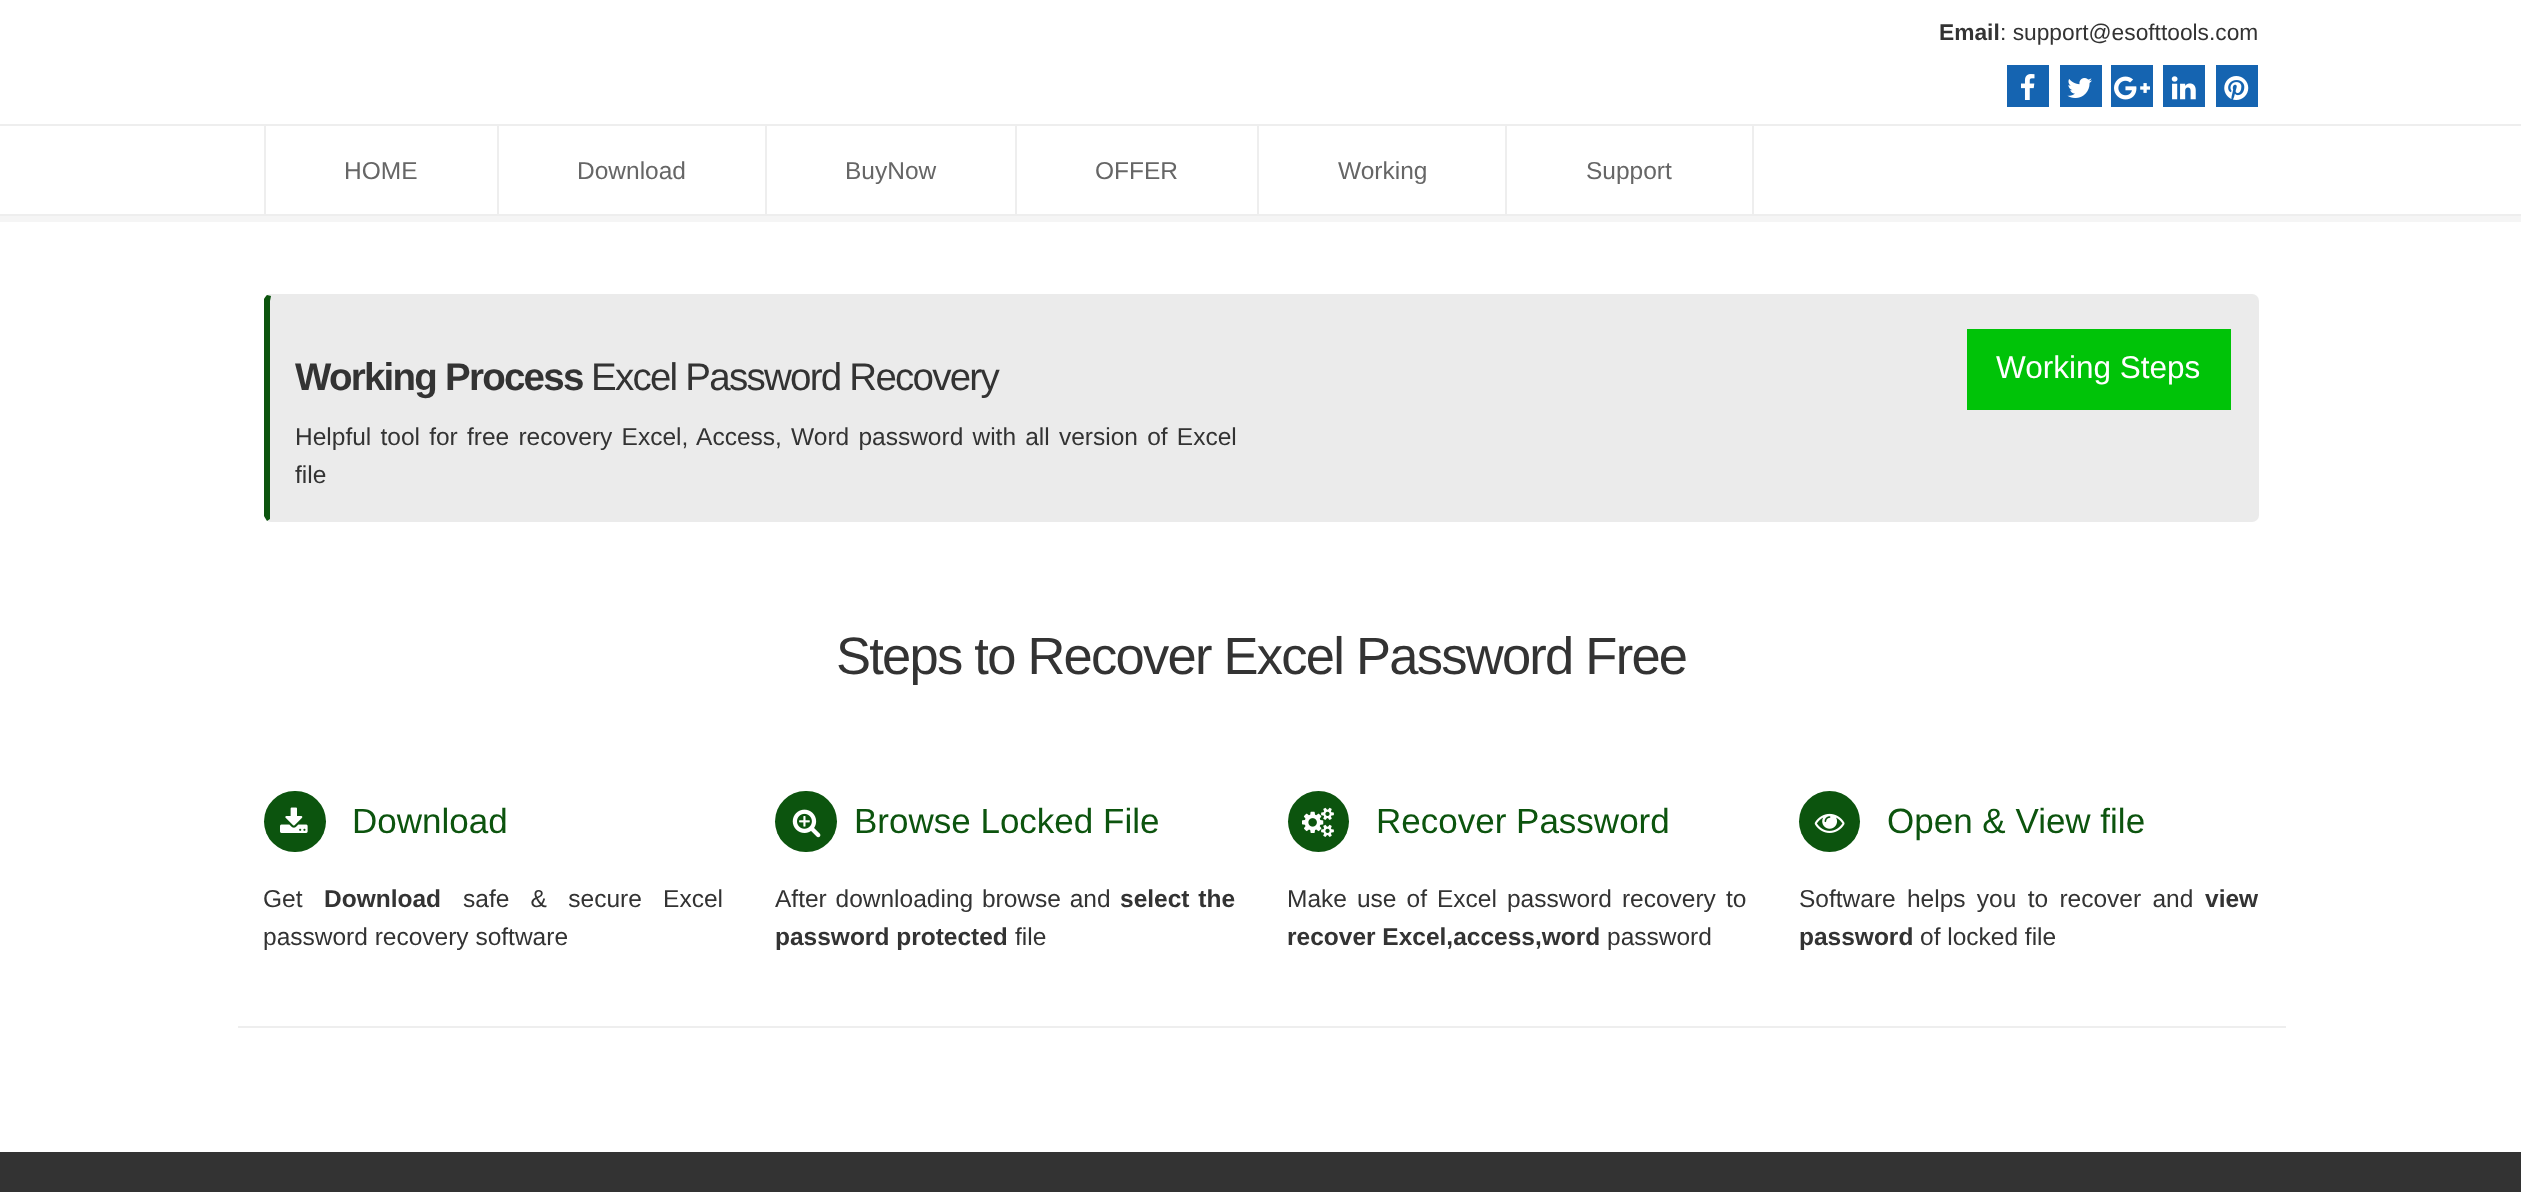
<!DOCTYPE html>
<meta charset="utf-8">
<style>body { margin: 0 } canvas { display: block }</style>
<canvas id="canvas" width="2521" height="1192"></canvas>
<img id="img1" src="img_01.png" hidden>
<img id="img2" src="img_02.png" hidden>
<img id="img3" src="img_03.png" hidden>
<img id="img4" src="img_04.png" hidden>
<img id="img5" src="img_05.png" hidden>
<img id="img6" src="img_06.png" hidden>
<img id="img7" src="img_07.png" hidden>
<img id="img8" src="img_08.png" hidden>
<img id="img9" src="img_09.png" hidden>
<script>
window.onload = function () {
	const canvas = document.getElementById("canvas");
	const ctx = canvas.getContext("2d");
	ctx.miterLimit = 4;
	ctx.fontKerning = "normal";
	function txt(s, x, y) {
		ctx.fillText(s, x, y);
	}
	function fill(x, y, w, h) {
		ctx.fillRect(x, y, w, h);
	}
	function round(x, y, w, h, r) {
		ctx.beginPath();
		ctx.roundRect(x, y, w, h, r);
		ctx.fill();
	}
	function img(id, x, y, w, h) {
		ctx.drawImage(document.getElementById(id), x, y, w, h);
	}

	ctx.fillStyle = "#FFFFFF";
	fill(0, 0, 2521, 1192);
	ctx.fillStyle = "#1564B1";
	fill(2007, 65, 42, 42);
	img("img1", 2021, 74, 14, 26);
	fill(2060, 65, 42, 42);
	img("img2", 2067, 78, 25, 20);
	fill(2111, 65, 42, 42);
	img("img3", 2114, 76, 36, 24);
	fill(2163, 65, 42, 42);
	img("img4", 2171, 76, 25, 24);
	fill(2216, 65, 42, 42);
	img("img5", 2224, 76, 25, 24);
	ctx.fillStyle = "#F5F5F5";
	ctx.beginPath();
	ctx.moveTo(0, 215);
	ctx.lineTo(0, 222);
	ctx.lineTo(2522, 222);
	ctx.lineTo(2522, 131);
	ctx.lineTo(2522, 215);
	ctx.closePath();
	ctx.fill();
	ctx.fillStyle = "#EEEEEE";
	fill(0, 124, 2521, 2);
	fill(0, 214, 2521, 2);
	fill(264, 126, 2, 88);
	fill(497, 126, 2, 88);
	fill(765, 126, 2, 88);
	fill(1015, 126, 2, 88);
	fill(1257, 126, 2, 88);
	fill(1752, 126, 2, 88);
	fill(1505, 126, 2, 88);
	ctx.fillStyle = "#EBEBEB";
	round(264, 294, 1995, 228, 7);
	ctx.fillStyle = "#0C540E";
	ctx.beginPath();
	ctx.moveTo(264, 299);
	ctx.bezierCurveTo(265, 297, 266, 296, 267, 295);
	ctx.lineTo(271, 296);
	ctx.lineTo(270, 301);
	ctx.lineTo(270, 514);
	ctx.lineTo(270, 519);
	ctx.lineTo(267, 521);
	ctx.bezierCurveTo(266, 519, 265, 518, 264, 516);
	ctx.closePath();
	ctx.fill();
	ctx.fillStyle = "#00C308";
	fill(1967, 329, 264, 81);
	ctx.fillStyle = "#EEEEEE";
	fill(238, 1026, 2048, 2);
	ctx.fillStyle = "#0C540E";
	round(264, 791, 62, 61, 30.5);
	img("img6", 280, 807, 28, 26);
	round(775, 791, 62, 61, 30.5);
	img("img7", 792, 809, 29, 29);
	ctx.beginPath();
	ctx.arc(1318.5, 821.5, 30.5, 0, Math.PI * 2);
	ctx.fill();
	img("img8", 1302, 807, 32, 30);
	ctx.beginPath();
	ctx.arc(1829.5, 821.5, 30.5, 0, Math.PI * 2);
	ctx.fill();
	img("img9", 1814, 813, 31, 20);
	ctx.fillStyle = "#333333";
	fill(0, 1152, 2521, 40);
	ctx.font = "bold 22.75px Liberation Sans";
	txt("Email", 1939, 40);
	ctx.font = "22.75px Liberation Sans";
	txt(": support@esofttools.com", 2000, 40);
	ctx.font = "24.5px Liberation Sans";
	ctx.fillStyle = "#666666";
	txt("HOME", 344, 179);
	txt("Download", 577, 179);
	txt("BuyNow", 845, 179);
	txt("OFFER", 1095, 179);
	txt("Working", 1338, 179);
	txt("Support", 1586, 179);
	ctx.letterSpacing = "-1.75px";
	ctx.font = "bold 38.5px Liberation Sans";
	ctx.fillStyle = "#333333";
	txt("Working Process", 295, 390);
	ctx.font = "38.5px Liberation Sans";
	txt("Excel Password Recovery", 591, 390);
	ctx.letterSpacing = "0px";
	ctx.wordSpacing = "2.4px";
	ctx.font = "24.5px Liberation Sans";
	txt("Helpful tool for free recovery Excel, Access, Word password with all version of Excel", 295, 445);
	ctx.wordSpacing = "0px";
	txt("file", 295, 483);
	ctx.font = "31.5px Liberation Sans";
	ctx.fillStyle = "#FFFFFF";
	txt("Working Steps", 1996, 378);
	ctx.letterSpacing = "-1.75px";
	ctx.font = "52.5px Liberation Sans";
	ctx.fillStyle = "#333333";
	txt("Steps to Recover Excel Password Free", 836, 674);
	ctx.letterSpacing = "0px";
	ctx.font = "35px Liberation Sans";
	ctx.fillStyle = "#0C540E";
	txt("Download", 352, 833);
	ctx.font = "24.5px Liberation Sans";
	ctx.fillStyle = "#333333";
	txt("Get", 263, 907);
	ctx.font = "bold 24.5px Liberation Sans";
	txt("Download", 324, 907);
	ctx.wordSpacing = "14.5px";
	ctx.font = "24.5px Liberation Sans";
	txt("safe & secure Excel", 463, 907);
	ctx.wordSpacing = "0px";
	txt("password recovery software", 263, 945);
	ctx.font = "35px Liberation Sans";
	ctx.fillStyle = "#0C540E";
	txt("Browse Locked File", 854, 833);
	ctx.wordSpacing = "2px";
	ctx.font = "24.5px Liberation Sans";
	ctx.fillStyle = "#333333";
	txt("After downloading browse and", 775, 907);
	ctx.font = "bold 24.5px Liberation Sans";
	txt("select the", 1120, 907);
	ctx.wordSpacing = "0px";
	txt("password protected", 775, 945);
	ctx.font = "24.5px Liberation Sans";
	txt("file", 1015, 945);
	ctx.font = "35px Liberation Sans";
	ctx.fillStyle = "#0C540E";
	txt("Recover Password", 1376, 833);
	ctx.wordSpacing = "3.25px";
	ctx.font = "24.5px Liberation Sans";
	ctx.fillStyle = "#333333";
	txt("Make use of Excel password recovery to", 1287, 907);
	ctx.wordSpacing = "0px";
	ctx.font = "bold 24.5px Liberation Sans";
	txt("recover Excel,access,word", 1287, 945);
	ctx.font = "24.5px Liberation Sans";
	txt("password", 1607, 945);
	ctx.font = "35px Liberation Sans";
	ctx.fillStyle = "#0C540E";
	txt("Open & View file", 1887, 833);
	ctx.wordSpacing = "4.5px";
	ctx.font = "24.5px Liberation Sans";
	ctx.fillStyle = "#333333";
	txt("Software helps you to recover and", 1799, 907);
	ctx.wordSpacing = "0px";
	ctx.font = "bold 24.5px Liberation Sans";
	txt("view", 2205, 907);
	txt("password", 1799, 945);
	ctx.font = "24.5px Liberation Sans";
	txt("of locked file", 1920, 945);
};
</script>
